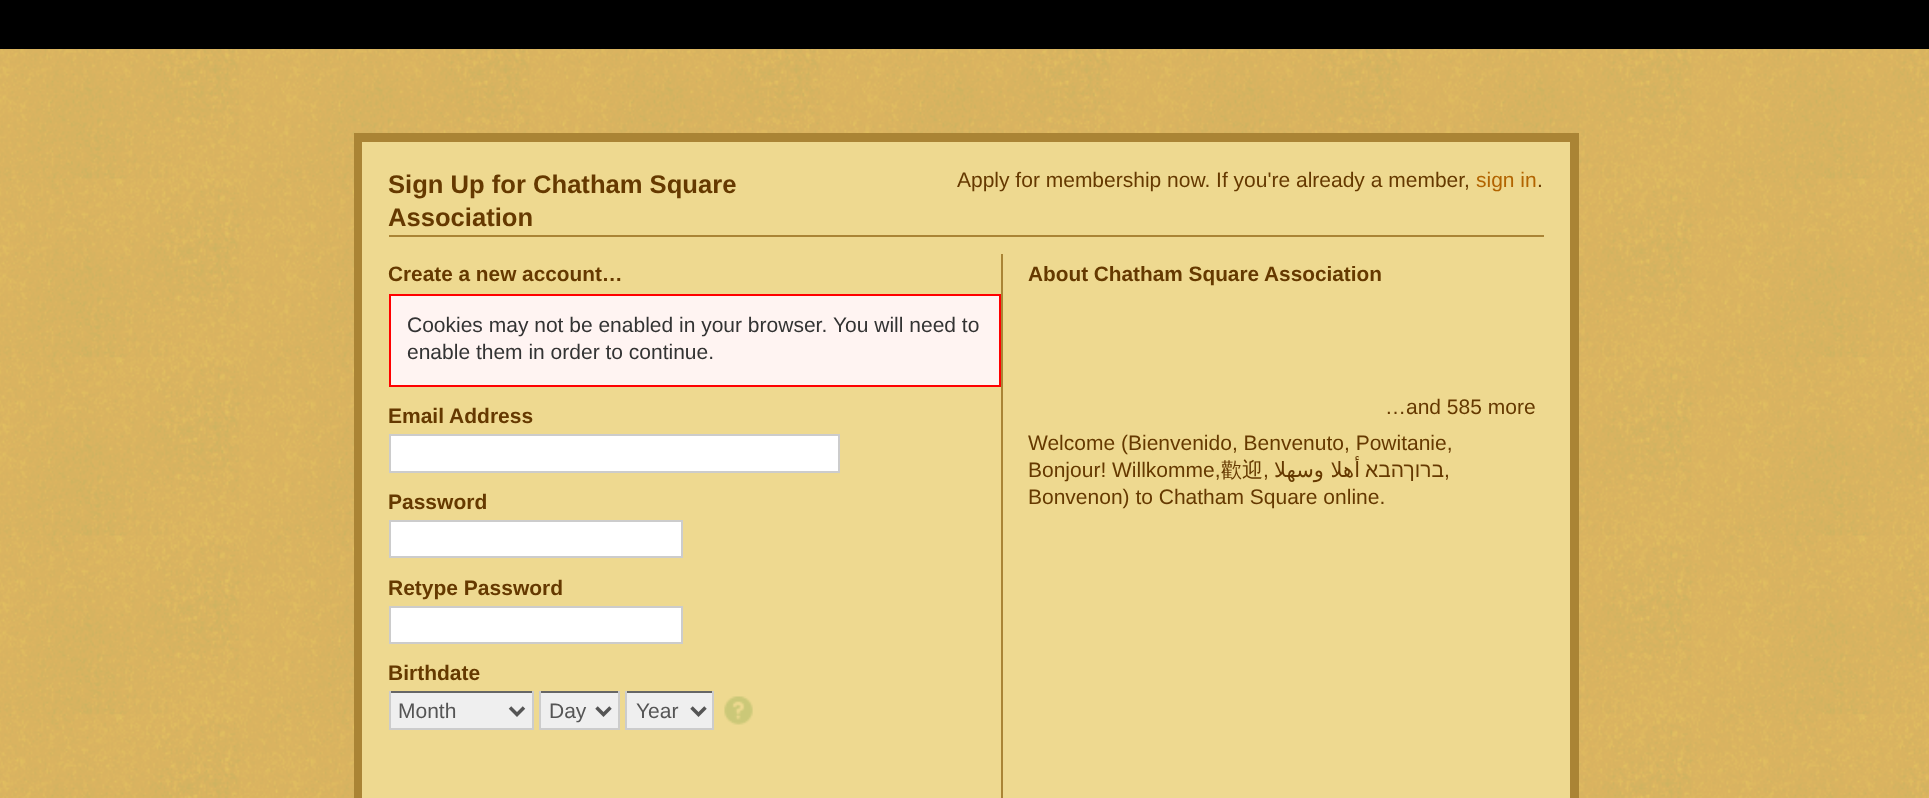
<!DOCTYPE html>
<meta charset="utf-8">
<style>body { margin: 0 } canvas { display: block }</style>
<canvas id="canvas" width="1929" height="798"></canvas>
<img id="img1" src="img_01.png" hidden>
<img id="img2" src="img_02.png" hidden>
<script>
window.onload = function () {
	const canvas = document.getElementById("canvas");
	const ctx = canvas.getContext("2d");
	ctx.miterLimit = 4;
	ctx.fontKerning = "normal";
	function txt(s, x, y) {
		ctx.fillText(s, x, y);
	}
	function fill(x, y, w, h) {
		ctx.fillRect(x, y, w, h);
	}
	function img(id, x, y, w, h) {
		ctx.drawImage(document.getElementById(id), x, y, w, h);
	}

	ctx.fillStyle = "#FFFFFF";
	fill(0, 0, 1929, 798);
	img("img1", 0, 49, 1929, 749);
	ctx.fillStyle = "#000000";
	fill(0, 0, 1929, 49);
	ctx.strokeStyle = "#AA8435";
	ctx.lineWidth = 9;
	ctx.strokeRect(358.5, 137.5, 1216, 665);
	ctx.fillStyle = "#EED990";
	fill(362, 142, 1208, 656);
	ctx.fillStyle = "#AA8435";
	fill(389, 235, 1155, 2);
	fill(1001, 254, 2, 544);
	ctx.fillStyle = "#FFF4F2";
	ctx.beginPath();
	ctx.rect(390, 295, 610, 91);
	ctx.fill();
	ctx.strokeStyle = "#FF0000";
	ctx.lineWidth = 2;
	ctx.stroke();
	ctx.fillStyle = "#FFFFFF";
	ctx.beginPath();
	ctx.rect(390, 435, 449, 37);
	ctx.fill();
	ctx.strokeStyle = "#CCCCCC";
	ctx.stroke();
	ctx.beginPath();
	ctx.rect(390, 521, 292, 36);
	ctx.fill();
	ctx.stroke();
	ctx.beginPath();
	ctx.rect(390, 607, 292, 36);
	ctx.fill();
	ctx.stroke();
	ctx.fillStyle = "#EFEFEF";
	fill(391, 693, 141, 35);
	ctx.fillStyle = "#666666";
	fill(389, 691, 145, 2);
	ctx.fillStyle = "#CCCCCC";
	fill(532, 691, 2, 39);
	fill(389, 728, 145, 2);
	fill(389, 691, 2, 39);
	ctx.beginPath();
	ctx.moveTo(510, 707.5);
	ctx.lineTo(517, 714.5);
	ctx.lineTo(524, 707.5);
	ctx.strokeStyle = "#555555";
	ctx.lineWidth = 3.5;
	ctx.stroke();
	ctx.fillStyle = "#EFEFEF";
	fill(541, 693, 77, 35);
	ctx.fillStyle = "#666666";
	fill(539, 691, 81, 2);
	ctx.fillStyle = "#CCCCCC";
	fill(618, 691, 2, 39);
	fill(539, 728, 81, 2);
	fill(539, 691, 2, 39);
	ctx.beginPath();
	ctx.moveTo(596.5, 707.5);
	ctx.lineTo(603.5, 714.5);
	ctx.lineTo(610.5, 707.5);
	ctx.stroke();
	ctx.fillStyle = "#EFEFEF";
	fill(627, 693, 85, 35);
	ctx.fillStyle = "#666666";
	fill(625, 691, 89, 2);
	ctx.fillStyle = "#CCCCCC";
	fill(712, 691, 2, 39);
	fill(625, 728, 89, 2);
	fill(625, 691, 2, 39);
	ctx.beginPath();
	ctx.moveTo(691.5, 707.5);
	ctx.lineTo(698.5, 714.5);
	ctx.lineTo(705.5, 707.5);
	ctx.stroke();
	img("img2", 724, 696, 29, 29);
	ctx.font = "bold 25.6px Liberation Sans";
	ctx.fillStyle = "#653900";
	txt("Sign Up for Chatham Square", 388, 193);
	txt("Association", 388, 226);
	ctx.font = "21px Liberation Sans";
	txt("Apply for membership now. If you're already a member,", 957, 187);
	ctx.fillStyle = "#B26400";
	txt("sign in", 1476, 187);
	ctx.fillStyle = "#653900";
	txt(".", 1537, 187);
	ctx.font = "bold 20.8px Liberation Sans";
	txt("Create a new account…", 388, 281);
	ctx.font = "21px Liberation Sans";
	ctx.fillStyle = "#333333";
	txt("Cookies may not be enabled in your browser.", 407, 332);
	txt("You will need to", 833, 332);
	txt("enable them in order to continue.", 407, 359);
	ctx.font = "bold 21px Liberation Sans";
	ctx.fillStyle = "#653900";
	txt("Email Address", 388, 423);
	txt("Password", 388, 509);
	txt("Retype Password", 388, 595);
	txt("Birthdate", 388, 680);
	ctx.font = "21px Liberation Sans";
	ctx.fillStyle = "#555555";
	txt("Month", 398, 718);
	txt("Day", 549, 718);
	txt("Year", 636, 718);
	ctx.font = "bold 20.8px Liberation Sans";
	ctx.fillStyle = "#653900";
	txt("About Chatham Square Association", 1028, 281);
	ctx.font = "21px Liberation Sans";
	txt("…and 585 more", 1385, 414);
	txt("Welcome (Bienvenido, Benvenuto, Powitanie,", 1028, 450);
	txt("Bonjour! Willkomme,", 1028, 477);
	ctx.font = "500 21px WenQuanYi Zen Hei";
	txt("歡迎", 1221, 477);
	ctx.font = "21px Liberation Sans";
	txt(",", 1263, 477);
	ctx.direction = "rtl";
	ctx.font = "21px DejaVu Sans";
	txt("أهلا وسهلا", 1360, 477);
	ctx.font = "21px Liberation Sans";
	txt("ברוךהבא", 1444, 477);
	ctx.direction = "ltr";
	txt(",", 1444, 477);
	txt("Bonvenon) to Chatham Square online.", 1028, 504);
};
</script>
